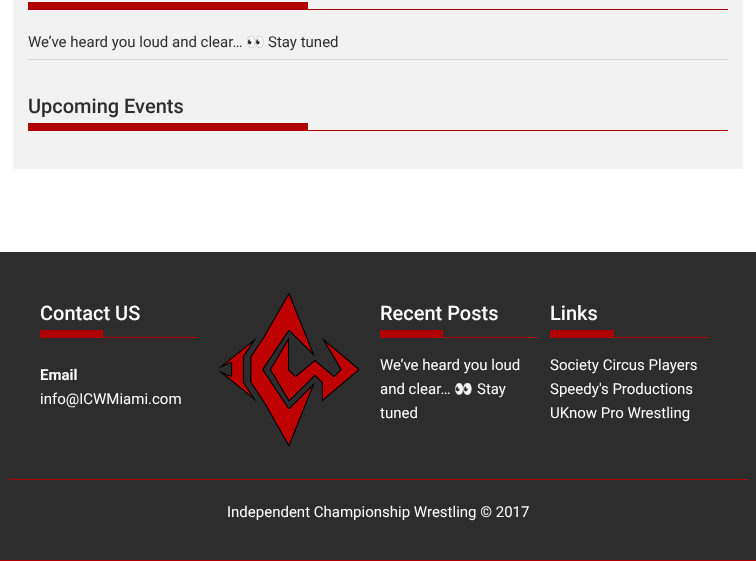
<!DOCTYPE html>
<meta charset="utf-8">
<style>body { margin: 0 } canvas { display: block }</style>
<canvas id="canvas" width="756" height="561"></canvas>
<img id="img1" src="img_01.png" hidden>
<script>
window.onload = function () {
	const canvas = document.getElementById("canvas");
	const ctx = canvas.getContext("2d");
	ctx.miterLimit = 4;
	ctx.fontKerning = "normal";
	function txt(s, x, y) {
		ctx.fillText(s, x, y);
	}
	function fill(x, y, w, h) {
		ctx.fillRect(x, y, w, h);
	}
	function img(id, x, y, w, h) {
		ctx.drawImage(document.getElementById(id), x, y, w, h);
	}

	ctx.fillStyle = "#FFFFFF";
	fill(0, 0, 756, 561);
	ctx.fillStyle = "#F2F2F2";
	fill(13, 0, 730, 169);
	ctx.fillStyle = "#AF0005";
	fill(28, 9, 700, 1);
	fill(28, 2, 280, 7);
	ctx.fillStyle = "#D7D7D7";
	fill(28, 59, 700, 1);
	ctx.fillStyle = "#AF0005";
	fill(28, 130, 700, 1);
	fill(28, 123, 280, 7);
	ctx.fillStyle = "#2D2D2D";
	fill(0, 252, 756, 308);
	ctx.fillStyle = "#AF0005";
	fill(0, 560, 756, 1);
	fill(40, 337, 158, 1);
	fill(40, 330, 63, 7);
	img("img1", 218, 292, 142, 155);
	fill(380, 337, 158, 1);
	fill(380, 330, 63, 7);
	fill(550, 337, 158, 1);
	fill(550, 330, 64, 7);
	fill(8, 479, 740, 1);
	ctx.font = "15px Roboto";
	ctx.fillStyle = "#2D2D2D";
	txt("We’ve heard you loud and clear…", 28, 47);
	ctx.font = "15px Noto Color Emoji";
	txt("👀", 246, 47);
	ctx.font = "15px Roboto";
	txt("Stay tuned", 268, 47);
	ctx.font = "500 20px Roboto";
	txt("Upcoming Events", 28, 113);
	ctx.fillStyle = "#FFFFFF";
	txt("Contact US", 40, 320);
	ctx.font = "bold 15px Roboto";
	txt("Email", 40, 380);
	ctx.font = "15px Roboto";
	txt("info@ICWMiami.com", 40, 404);
	ctx.font = "500 20px Roboto";
	txt("Recent Posts", 380, 320);
	ctx.font = "15px Roboto";
	txt("We’ve heard you loud", 380, 370);
	txt("and clear…", 380, 394);
	ctx.font = "15px Noto Color Emoji";
	txt("👀", 454, 394);
	ctx.font = "15px Roboto";
	txt("Stay", 477, 394);
	txt("tuned", 380, 418);
	ctx.font = "500 20px Roboto";
	txt("Links", 550, 320);
	ctx.font = "15px Roboto";
	txt("Society Circus Players", 550, 370);
	txt("Speedy's Productions", 550, 394);
	txt("UKnow Pro Wrestling", 550, 418);
	txt("Independent Championship Wrestling © 2017", 227, 517);
};
</script>
